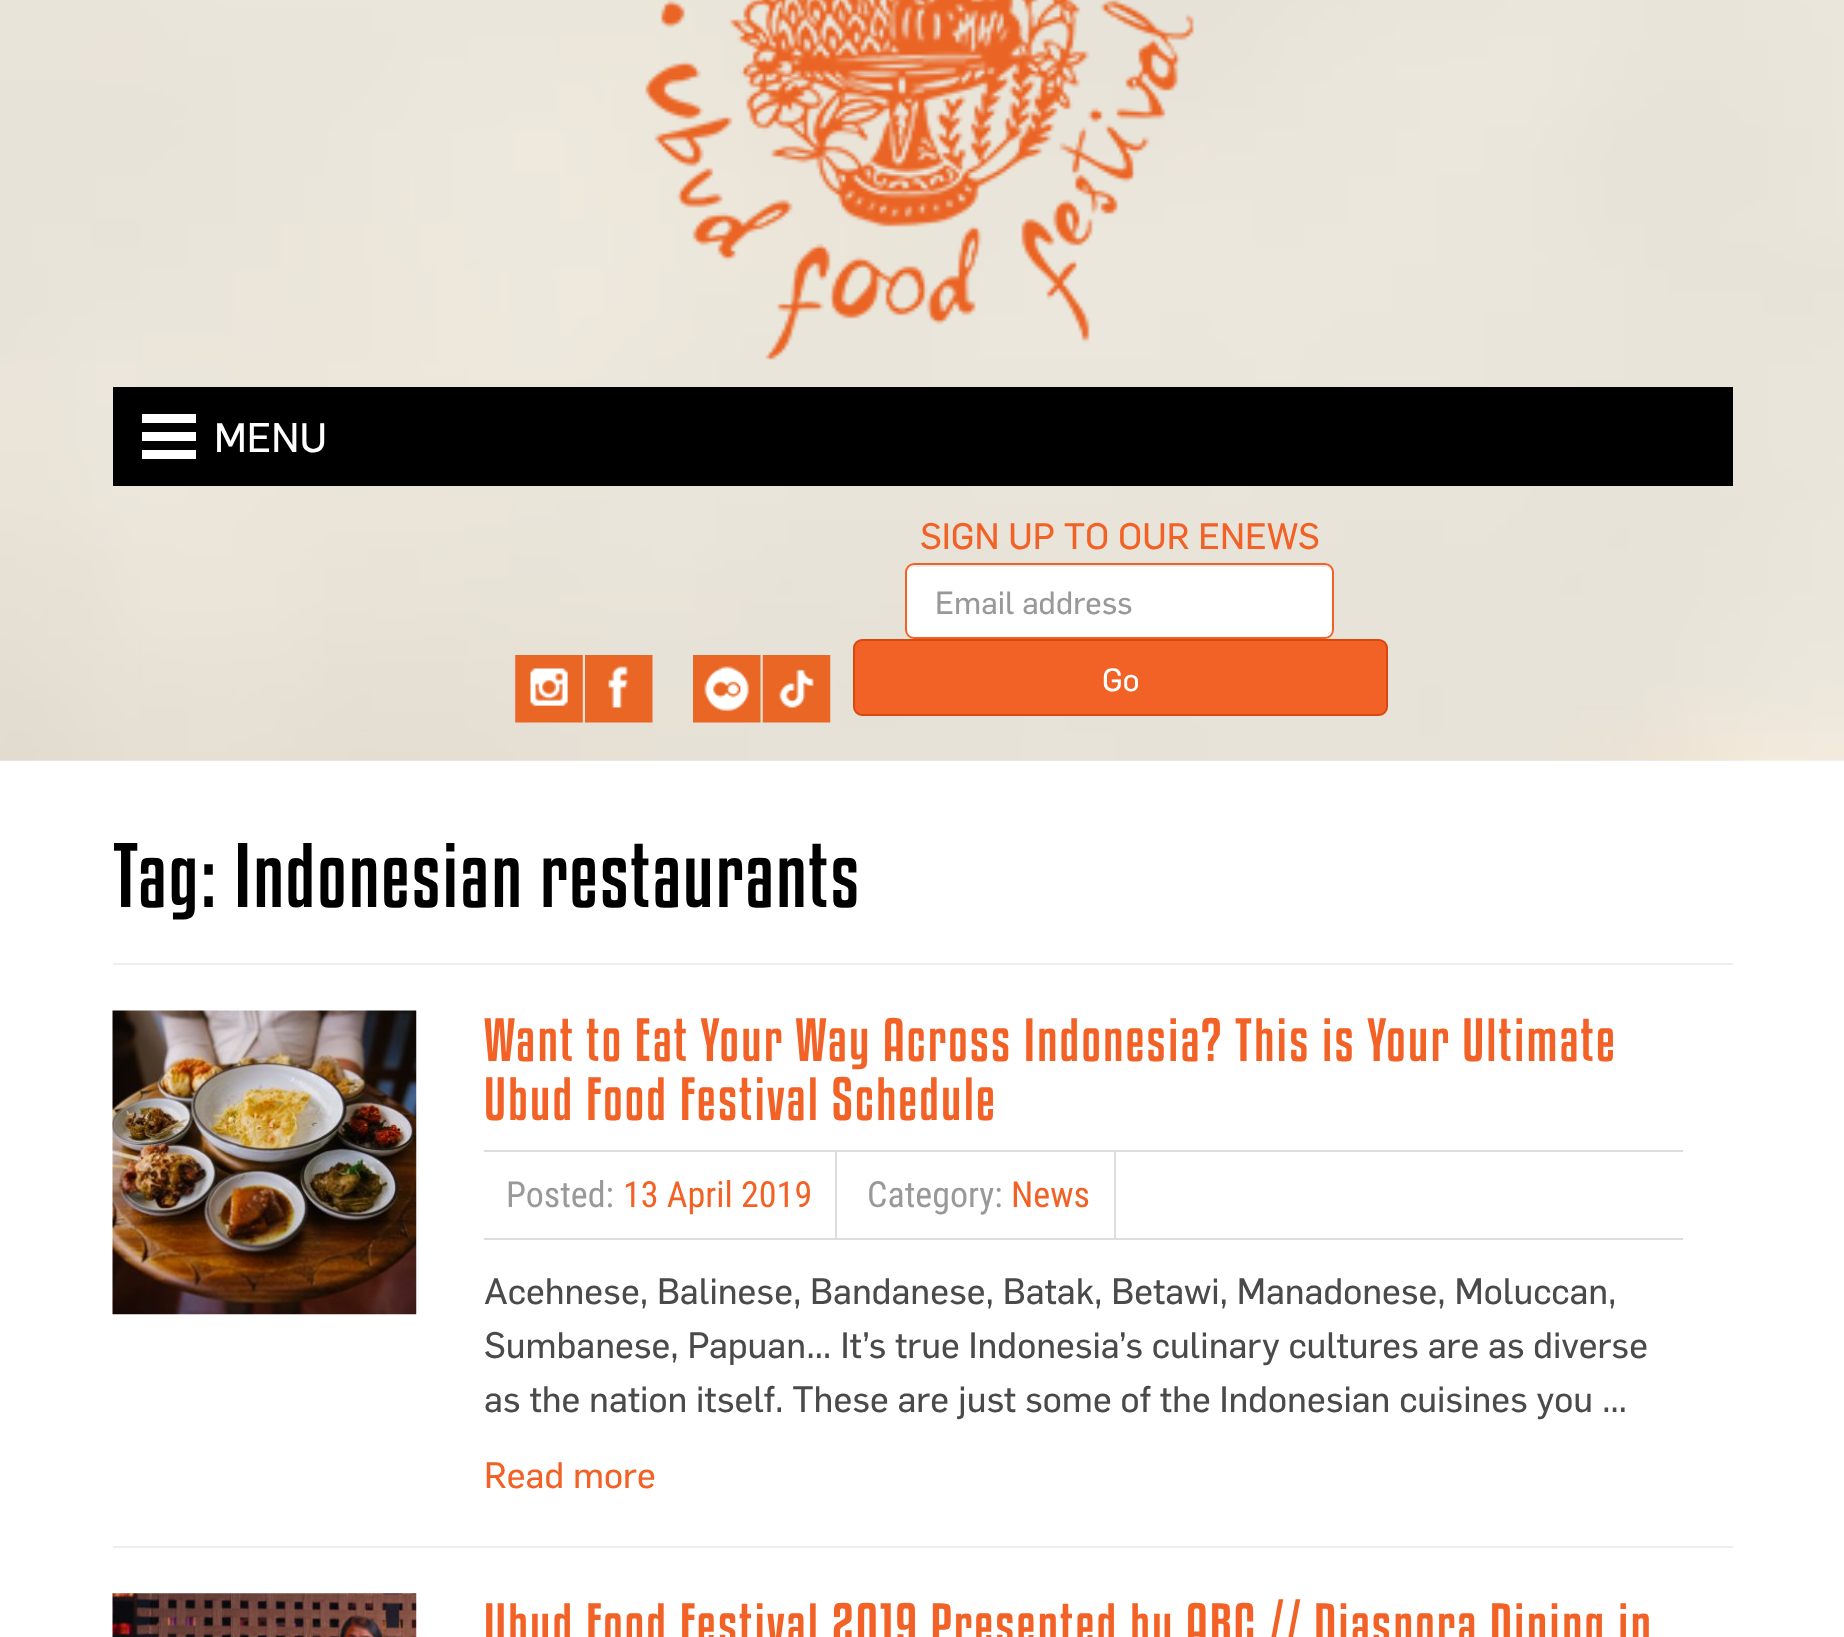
<!DOCTYPE html>
<meta charset="utf-8">
<style>body { margin: 0 } canvas { display: block }</style>
<canvas id="canvas" width="1844" height="1637"></canvas>
<img id="img1" src="img_01.png" hidden>
<img id="img2" src="img_02.png" hidden>
<img id="img3" src="img_03.png" hidden>
<img id="img4" src="img_04.png" hidden>
<img id="img5" src="img_05.png" hidden>
<img id="img6" src="img_06.png" hidden>
<img id="img7" src="img_07.png" hidden>
<img id="img8" src="img_08.png" hidden>
<script>
window.onload = function () {
	const canvas = document.getElementById("canvas");
	const ctx = canvas.getContext("2d");
	ctx.miterLimit = 4;
	ctx.fontKerning = "normal";
	function txt(s, x, y) {
		ctx.fillText(s, x, y);
	}
	function fill(x, y, w, h) {
		ctx.fillRect(x, y, w, h);
	}
	function round(x, y, w, h, r) {
		ctx.beginPath();
		ctx.roundRect(x, y, w, h, r);
		ctx.fill();
	}
	function img(id, x, y, w, h) {
		ctx.drawImage(document.getElementById(id), x, y, w, h);
	}

	ctx.fillStyle = "#FFFFFF";
	fill(0, 0, 1844, 1637);
	img("img1", 0, 0, 1844, 761);
	img("img2", 645, 0, 549, 360);
	ctx.fillStyle = "#000000";
	fill(113, 387, 1620, 99);
	ctx.fillStyle = "#FFFFFF";
	fill(142, 450, 54, 9);
	fill(142, 432, 54, 9);
	fill(142, 414, 54, 9);
	img("img3", 515, 655, 68, 68);
	img("img4", 585, 655, 68, 68);
	img("img5", 693, 655, 68, 68);
	img("img6", 762, 655, 69, 68);
	round(905, 563, 429, 76, 9);
	ctx.fillStyle = "#ECECEC";
	ctx.beginPath();
	ctx.moveTo(914, 567);
	ctx.lineTo(1325, 567);
	ctx.bezierCurveTo(1329, 567, 1332, 570, 1332, 574);
	ctx.bezierCurveTo(1332, 570, 1330, 565, 1325, 565);
	ctx.lineTo(914, 565);
	ctx.bezierCurveTo(909, 565, 907, 570, 907, 574);
	ctx.bezierCurveTo(907, 570, 910, 567, 914, 567);
	ctx.closePath();
	ctx.fill();
	ctx.beginPath();
	ctx.roundRect(906, 564, 427, 74, 8);
	ctx.strokeStyle = "#F26226";
	ctx.lineWidth = 2;
	ctx.stroke();
	ctx.fillStyle = "#F26226";
	ctx.beginPath();
	ctx.roundRect(854, 640, 533, 75, 8);
	ctx.fill();
	ctx.strokeStyle = "#D8490D";
	ctx.stroke();
	ctx.fillStyle = "#EEEEEE";
	fill(113, 963, 1620, 2);
	img("img7", 112, 1010, 305, 305);
	ctx.fillStyle = "#DDDDDD";
	fill(484, 1150, 1199, 2);
	fill(484, 1238, 1199, 2);
	fill(835, 1152, 2, 86);
	fill(1114, 1152, 2, 86);
	ctx.fillStyle = "#EEEEEE";
	fill(113, 1546, 1620, 2);
	img("img8", 112, 1593, 305, 44);
	ctx.font = "600 40.5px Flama";
	ctx.fillStyle = "#FFFFFF";
	txt("MENU", 214, 452);
	ctx.font = "600 36px Flama";
	ctx.fillStyle = "#F26226";
	txt("SIGN UP TO OUR ENEWS", 920, 549);
	ctx.font = "600 31.5px Flama";
	ctx.fillStyle = "#999999";
	txt("Email address", 935, 614);
	ctx.fillStyle = "#FFFFFF";
	txt("Go", 1102, 691);
	ctx.letterSpacing = "2.25px";
	ctx.font = "81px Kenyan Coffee";
	ctx.fillStyle = "#000000";
	txt("Tag: Indonesian restaurants", 113, 907);
	ctx.font = "54px Kenyan Coffee";
	ctx.fillStyle = "#F26226";
	txt("Want to Eat Your Way Across Indonesia? This is Your Ultimate", 484, 1061);
	txt("Ubud Food Festival Schedule", 484, 1120);
	ctx.letterSpacing = "0px";
	ctx.font = "36px Roboto Condensed";
	ctx.fillStyle = "#999999";
	txt("Posted:", 506, 1207);
	ctx.fillStyle = "#F26226";
	txt("13 April 2019", 623, 1207);
	ctx.fillStyle = "#999999";
	txt("Category:", 867, 1207);
	ctx.fillStyle = "#F26226";
	txt("News", 1011, 1207);
	ctx.font = "600 36px Flama";
	ctx.fillStyle = "#4A4A4A";
	txt("Acehnese, Balinese, Bandanese, Batak, Betawi, Manadonese, Moluccan,", 484, 1304);
	txt("Sumbanese, Papuan… It’s true Indonesia’s culinary cultures are as diverse", 484, 1358);
	txt("as the nation itself. These are just some of the Indonesian cuisines you …", 484, 1412);
	ctx.fillStyle = "#F26226";
	txt("Read more", 484, 1488);
	ctx.letterSpacing = "2.25px";
	ctx.font = "54px Kenyan Coffee";
	txt("Ubud Food Festival 2019 Presented by ABC // Diaspora Dining in", 484, 1646);
};
</script>
